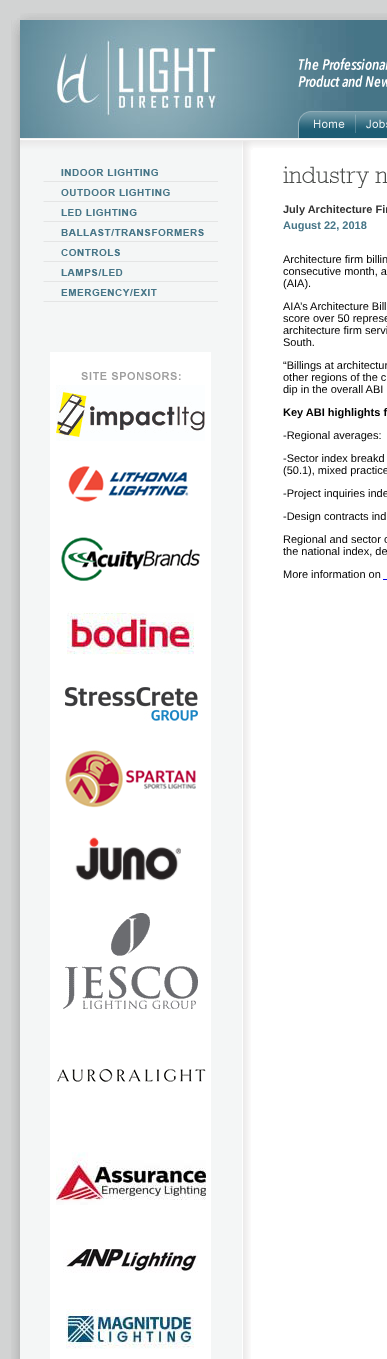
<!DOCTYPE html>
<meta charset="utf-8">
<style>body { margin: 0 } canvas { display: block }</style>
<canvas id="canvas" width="387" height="1359"></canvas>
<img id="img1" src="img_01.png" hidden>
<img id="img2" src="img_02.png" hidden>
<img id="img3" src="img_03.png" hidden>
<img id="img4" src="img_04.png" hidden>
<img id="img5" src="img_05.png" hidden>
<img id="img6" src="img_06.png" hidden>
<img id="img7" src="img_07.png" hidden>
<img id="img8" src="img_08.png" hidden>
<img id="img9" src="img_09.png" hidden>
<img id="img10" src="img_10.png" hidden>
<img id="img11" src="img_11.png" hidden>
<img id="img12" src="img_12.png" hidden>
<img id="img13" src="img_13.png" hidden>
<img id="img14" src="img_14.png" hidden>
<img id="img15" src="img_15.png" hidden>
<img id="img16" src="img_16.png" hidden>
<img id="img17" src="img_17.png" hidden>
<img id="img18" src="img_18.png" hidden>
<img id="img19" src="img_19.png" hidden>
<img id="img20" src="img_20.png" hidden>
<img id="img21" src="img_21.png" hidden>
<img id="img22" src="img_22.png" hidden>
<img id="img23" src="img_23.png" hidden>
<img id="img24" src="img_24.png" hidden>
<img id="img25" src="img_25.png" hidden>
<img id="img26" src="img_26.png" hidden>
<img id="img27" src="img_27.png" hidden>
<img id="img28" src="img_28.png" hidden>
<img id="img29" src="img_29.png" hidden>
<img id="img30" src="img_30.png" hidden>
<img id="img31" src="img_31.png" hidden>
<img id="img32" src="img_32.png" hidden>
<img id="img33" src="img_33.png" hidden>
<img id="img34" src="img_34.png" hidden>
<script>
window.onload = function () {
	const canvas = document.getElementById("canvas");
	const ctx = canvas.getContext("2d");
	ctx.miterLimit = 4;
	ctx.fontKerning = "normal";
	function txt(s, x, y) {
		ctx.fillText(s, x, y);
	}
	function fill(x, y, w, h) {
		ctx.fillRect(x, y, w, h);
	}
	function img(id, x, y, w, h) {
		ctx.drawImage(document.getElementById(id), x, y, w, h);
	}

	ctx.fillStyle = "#D2D3D3";
	fill(0, 0, 387, 1359);
	ctx.fillStyle = "#CDCECE";
	fill(17, 18, 3, 2);
	img("img1", 20, 13, 367, 7);
	img("img2", 11, 20, 9, 1339);
	img("img3", 12, 20, 8, 15);
	ctx.fillStyle = "#467587";
	fill(354, 20, 33, 91);
	img("img4", 20, 20, 278, 118);
	img("img5", 298, 20, 56, 91);
	img("img6", 298, 58, 89, 29);
	img("img7", 298, 111, 57, 27);
	img("img8", 355, 111, 1, 27);
	img("img9", 356, 111, 31, 27);
	ctx.fillStyle = "#FFFFFF";
	fill(251, 150, 2, 1209);
	img("img10", 20, 150, 231, 1209);
	img("img11", 20, 138, 233, 12);
	img("img12", 61, 169, 97, 7);
	img("img13", 43, 181, 175, 1);
	img("img14", 61, 189, 109, 7);
	img("img13", 43, 201, 175, 1);
	img("img15", 61, 209, 76, 7);
	img("img13", 43, 221, 175, 1);
	img("img16", 61, 229, 143, 7);
	img("img13", 43, 241, 175, 1);
	img("img17", 61, 249, 59, 7);
	img("img13", 43, 261, 175, 1);
	img("img18", 61, 269, 62, 7);
	img("img13", 43, 281, 175, 1);
	img("img19", 61, 289, 96, 7);
	img("img13", 43, 301, 175, 1);
	fill(50, 352, 161, 1007);
	img("img20", 81, 372, 100, 8);
	img("img21", 56, 385, 149, 56);
	img("img22", 68, 466, 121, 36);
	img("img23", 61, 537, 139, 44);
	img("img24", 67, 611, 127, 44);
	img("img25", 65, 687, 133, 34);
	img("img26", 65, 750, 131, 58);
	img("img27", 75, 836, 106, 45);
	img("img28", 63, 913, 135, 96);
	img("img29", 57, 1068, 149, 14);
	img("img30", 56, 1152, 150, 53);
	img("img31", 63, 1249, 135, 24);
	img("img32", 66, 1309, 128, 40);
	fill(253, 148, 134, 1211);
	img("img33", 253, 138, 134, 10);
	img("img34", 283, 166, 104, 22);
	ctx.fillStyle = "#0000EE";
	fill(383, 579, 4, 1);
	ctx.font = "bold 11px Liberation Sans";
	ctx.fillStyle = "#333333";
	txt("July Architecture Fir", 283, 213);
	ctx.fillStyle = "#467587";
	txt("August 22, 2018", 283, 229);
	ctx.font = "11px Liberation Sans";
	ctx.fillStyle = "#000000";
	txt("Architecture firm billin", 283, 263);
	txt("consecutive month, a", 283, 275);
	txt("(AIA).", 283, 287);
	txt("AIA’s Architecture Bill", 283, 310);
	txt("score over 50 represe", 283, 322);
	txt("architecture firm servi", 283, 334);
	txt("South.", 283, 346);
	txt("“Billings at architectur", 283, 369);
	txt("other regions of the c", 283, 381);
	txt("dip in the overall ABI", 283, 393);
	ctx.font = "bold 11px Liberation Sans";
	txt("Key ABI highlights f", 283, 416);
	ctx.font = "11px Liberation Sans";
	txt("-Regional averages:", 283, 439);
	txt("-Sector index breakd", 283, 462);
	txt("(50.1), mixed practice", 283, 474);
	txt("-Project inquiries inde", 283, 497);
	txt("-Design contracts ind", 283, 520);
	txt("Regional and sector c", 283, 543);
	txt("the national index, de", 283, 555);
	txt("More information on", 283, 578);
};
</script>
